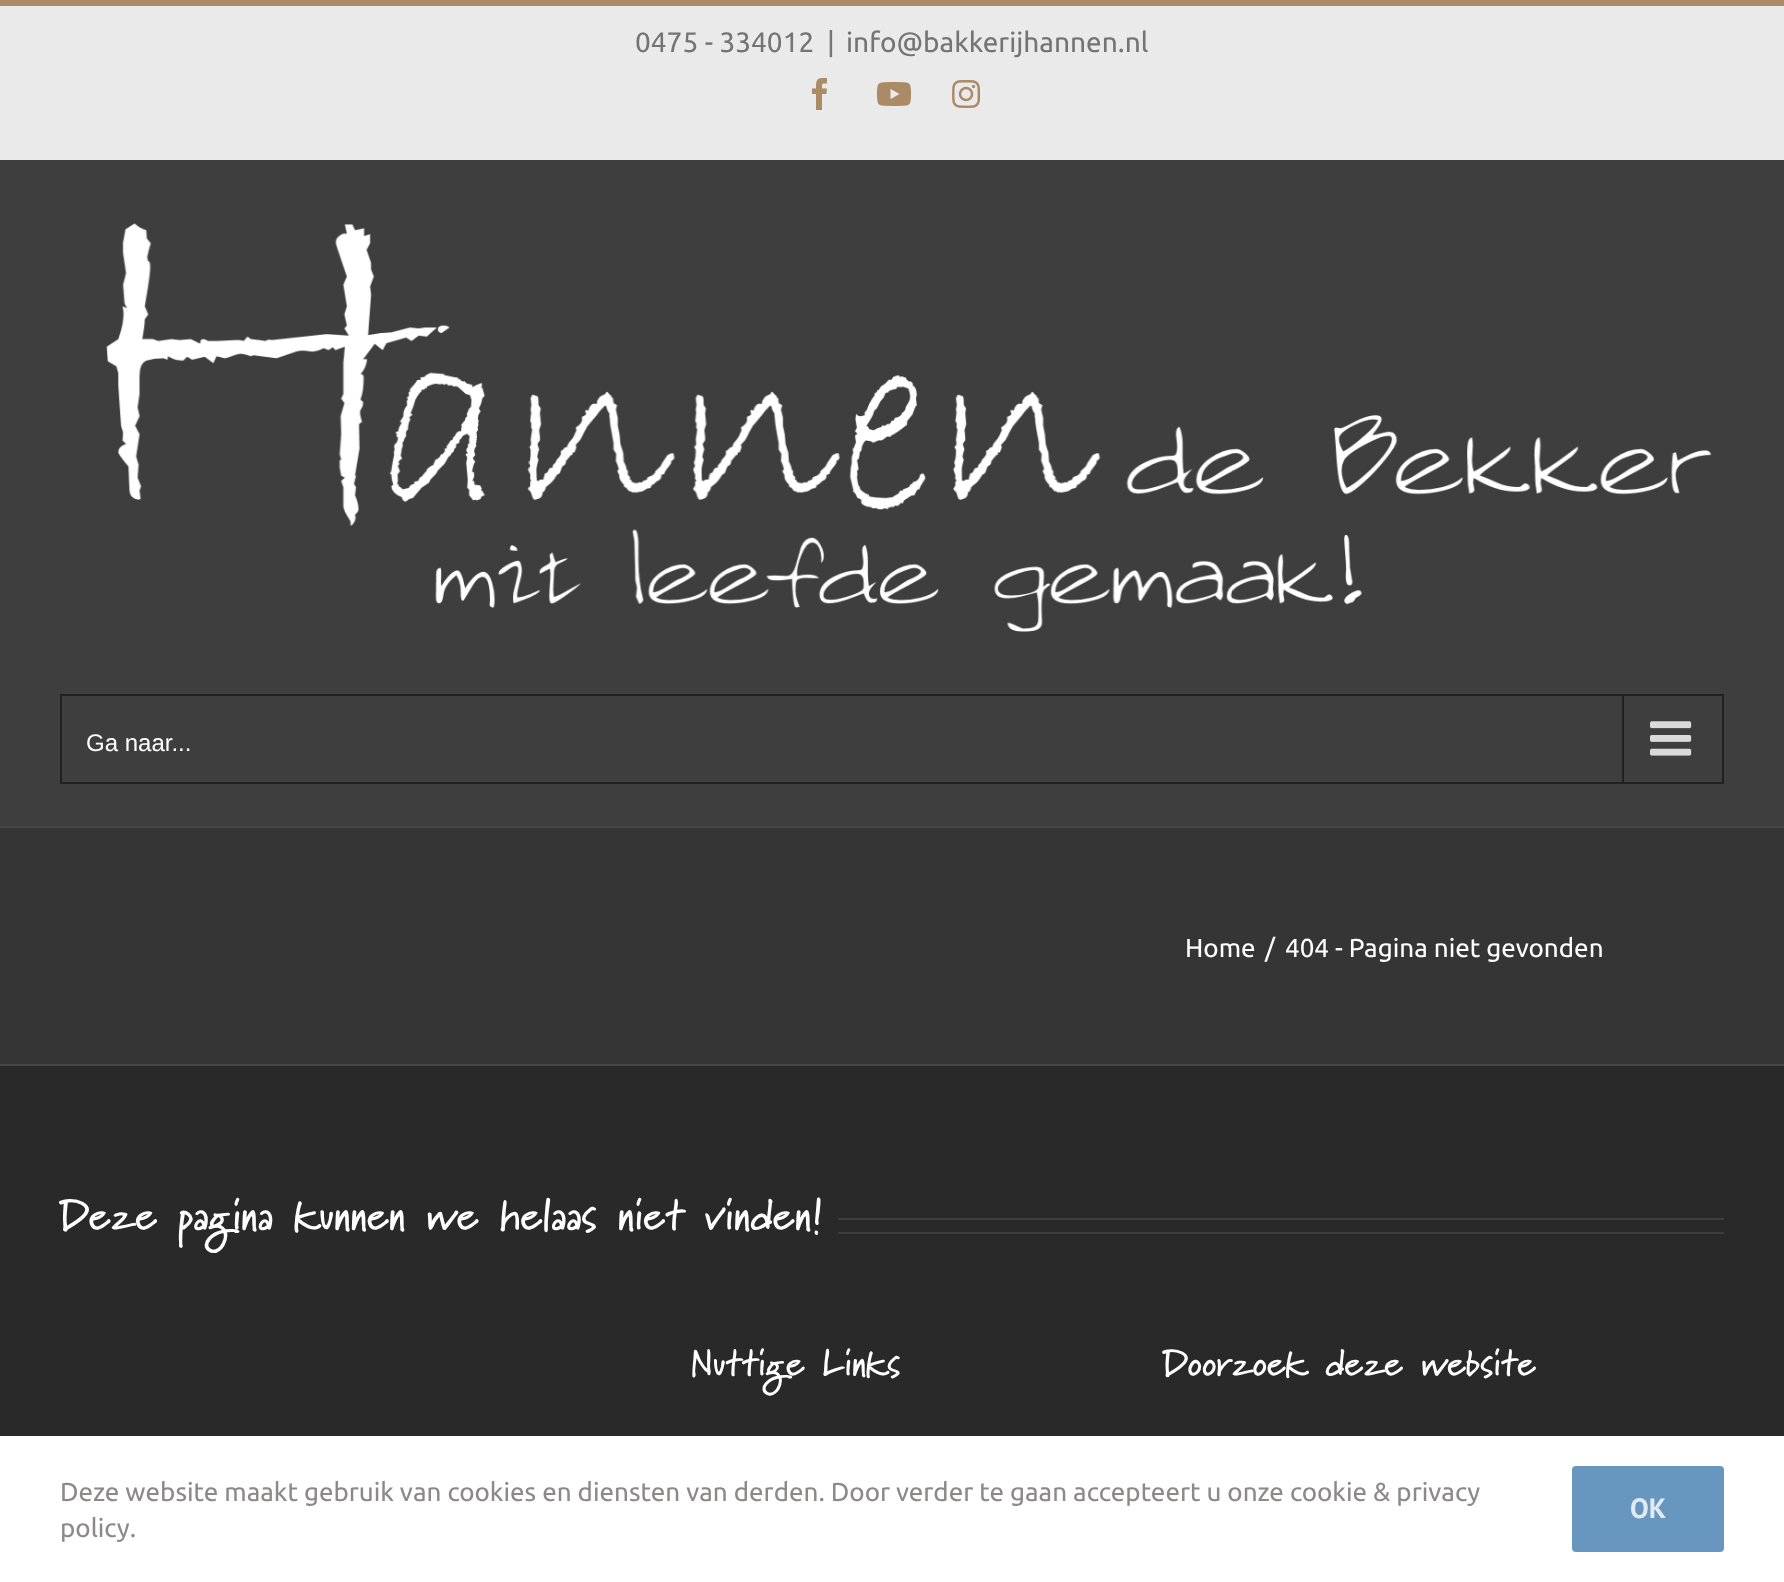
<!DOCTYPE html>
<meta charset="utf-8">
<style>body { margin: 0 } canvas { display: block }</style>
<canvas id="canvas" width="1784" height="1582"></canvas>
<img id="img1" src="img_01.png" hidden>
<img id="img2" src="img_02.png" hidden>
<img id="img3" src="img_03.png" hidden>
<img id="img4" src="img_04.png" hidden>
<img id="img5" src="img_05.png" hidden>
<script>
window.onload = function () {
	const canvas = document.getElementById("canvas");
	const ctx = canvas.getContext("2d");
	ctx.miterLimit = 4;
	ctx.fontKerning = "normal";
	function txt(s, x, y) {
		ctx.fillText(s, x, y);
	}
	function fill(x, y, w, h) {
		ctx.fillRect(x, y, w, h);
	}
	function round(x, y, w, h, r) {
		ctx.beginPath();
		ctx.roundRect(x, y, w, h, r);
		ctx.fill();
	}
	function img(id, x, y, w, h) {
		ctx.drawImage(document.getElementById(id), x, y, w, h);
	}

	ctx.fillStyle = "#29292A";
	fill(0, 0, 1784, 1582);
	ctx.fillStyle = "#EBEAEA";
	fill(0, 6, 1784, 154);
	ctx.fillStyle = "#AB8B65";
	fill(0, 0, 1784, 6);
	ctx.fillStyle = "#3E3E3E";
	fill(0, 160, 1784, 666);
	img("img1", 812, 78, 15, 32);
	img("img2", 876, 82, 36, 24);
	img("img3", 952, 80, 29, 28);
	img("img4", 106, 223, 1606, 409);
	ctx.strokeStyle = "#212122";
	ctx.lineWidth = 2;
	ctx.strokeRect(61, 695, 1662, 88);
	ctx.fillStyle = "#212122";
	fill(1622, 696, 2, 86);
	img("img5", 1650, 721, 42, 35);
	ctx.fillStyle = "#353535";
	fill(0, 828, 1784, 236);
	ctx.fillStyle = "#464646";
	fill(0, 826, 1784, 2);
	fill(0, 1064, 1784, 2);
	ctx.fillStyle = "#3E3E3E";
	fill(838, 1218, 886, 2);
	fill(838, 1232, 886, 2);
	ctx.fillStyle = "#FFFFFF";
	fill(0, 1436, 1784, 146);
	ctx.fillStyle = "#6797BE";
	round(1572, 1466, 152, 86, 4);
	ctx.font = "28px Ubuntu";
	ctx.fillStyle = "#747474";
	txt("0475 - 334012", 635, 52);
	txt("|", 827, 52);
	txt("info@bakkerijhannen.nl", 846, 52);
	ctx.font = "24px Liberation Sans";
	ctx.fillStyle = "#FFFFFF";
	txt("Ga naar...", 86, 751);
	ctx.font = "26px Ubuntu";
	txt("Home", 1185, 957);
	txt("/", 1265, 957);
	txt("404 - Pagina niet gevonden", 1285, 957);
	ctx.font = "bold 42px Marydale";
	txt("Deze pagina kunnen we helaas niet vinden!", 60, 1229);
	ctx.font = "bold 36px Marydale";
	txt("Nuttige Links", 691, 1375);
	txt("Doorzoek deze website", 1163, 1375);
	ctx.font = "26px Ubuntu";
	ctx.fillStyle = "#8C8989";
	txt("Deze website maakt gebruik van cookies en diensten van derden. Door verder te gaan accepteert u onze cookie & privacy", 60, 1501);
	txt("policy.", 60, 1537);
	ctx.font = "bold 28px PT Sans";
	ctx.fillStyle = "#E1EAF2";
	txt("OK", 1630, 1518);
};
</script>
